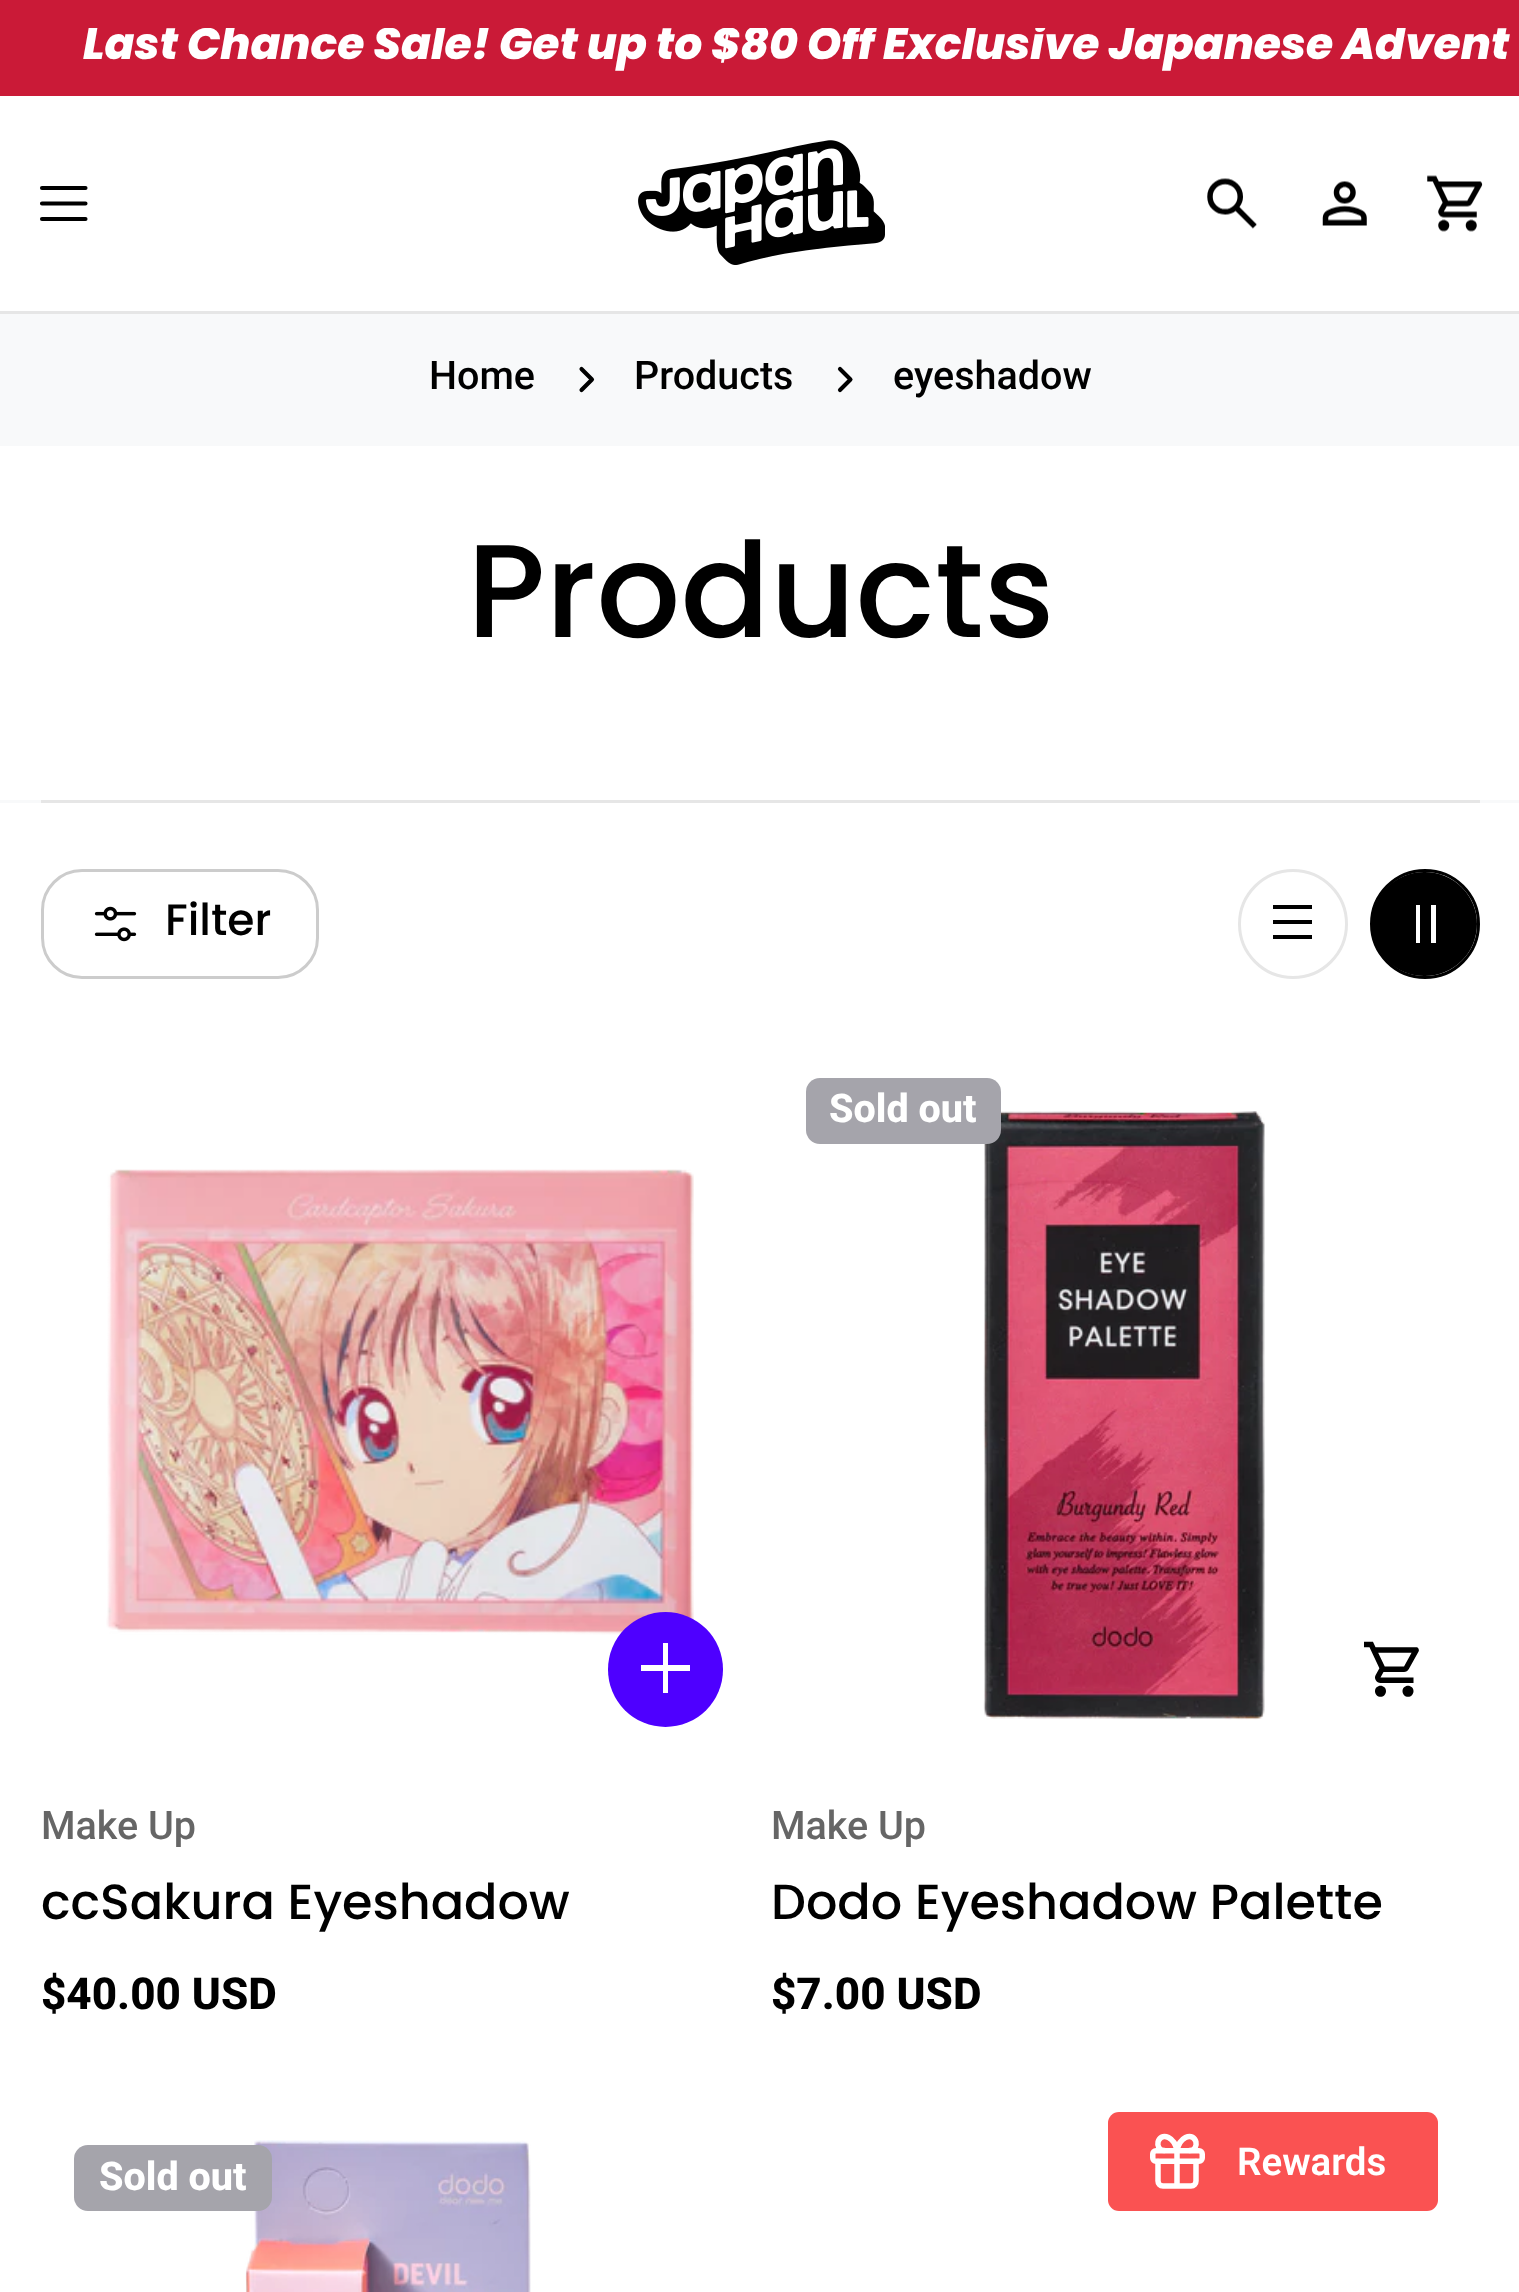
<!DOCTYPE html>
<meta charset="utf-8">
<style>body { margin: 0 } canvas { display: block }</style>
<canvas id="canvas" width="1519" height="2292"></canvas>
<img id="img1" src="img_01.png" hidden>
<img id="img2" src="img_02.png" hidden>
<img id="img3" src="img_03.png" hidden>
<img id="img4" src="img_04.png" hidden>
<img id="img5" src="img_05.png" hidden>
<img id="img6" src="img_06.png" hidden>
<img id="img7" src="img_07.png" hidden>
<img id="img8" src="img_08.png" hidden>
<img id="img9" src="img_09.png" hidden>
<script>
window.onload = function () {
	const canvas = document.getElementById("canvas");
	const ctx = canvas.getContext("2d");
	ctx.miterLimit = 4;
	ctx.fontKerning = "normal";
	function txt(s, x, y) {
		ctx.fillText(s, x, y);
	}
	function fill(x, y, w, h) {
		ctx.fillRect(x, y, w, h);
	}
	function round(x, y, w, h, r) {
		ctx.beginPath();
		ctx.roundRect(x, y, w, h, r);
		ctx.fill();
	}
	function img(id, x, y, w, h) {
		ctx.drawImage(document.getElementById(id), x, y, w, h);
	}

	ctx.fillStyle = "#F8F9FA";
	fill(0, 0, 1519, 2292);
	ctx.fillStyle = "#CA1A37";
	fill(0, 0, 1519, 96);
	ctx.fillStyle = "#E6E6E6";
	fill(0, 311, 1519, 3);
	ctx.fillStyle = "#FFFFFF";
	fill(0, 96, 1519, 215);
	ctx.beginPath();
	ctx.moveTo(42, 203.5);
	ctx.lineTo(85.5, 203.5);
	ctx.moveTo(42, 188);
	ctx.lineTo(85.5, 188);
	ctx.moveTo(42, 219);
	ctx.lineTo(85.5, 219);
	ctx.strokeStyle = "#000000";
	ctx.lineWidth = 4.1;
	ctx.lineCap = "round";
	ctx.lineJoin = "round";
	ctx.stroke();
	img("img1", 638, 140, 247, 125);
	img("img2", 1207, 178, 50, 51);
	img("img3", 1322, 181, 45, 45);
	img("img4", 1427, 175, 56, 57);
	ctx.beginPath();
	ctx.moveTo(581.5, 369);
	ctx.lineTo(592, 379.5);
	ctx.lineTo(581.5, 390);
	ctx.stroke();
	ctx.beginPath();
	ctx.moveTo(840, 369);
	ctx.lineTo(850.5, 379.5);
	ctx.lineTo(840, 390);
	ctx.stroke();
	fill(0, 446, 1519, 354);
	ctx.fillStyle = "#E6E6E6";
	fill(41, 800, 1439, 3);
	ctx.fillStyle = "#FFFFFF";
	fill(0, 803, 1519, 1489);
	ctx.beginPath();
	ctx.roundRect(42.5, 870.5, 275, 107, 39.5);
	ctx.strokeStyle = "#CCCCCC";
	ctx.lineWidth = 3;
	ctx.lineJoin = "miter";
	ctx.stroke();
	img("img5", 94, 906, 43, 36);
	ctx.beginPath();
	ctx.arc(1293, 924, 53.5, 0, Math.PI * 2);
	ctx.strokeStyle = "#E6E6E6";
	ctx.stroke();
	ctx.fillStyle = "#000000";
	fill(1273, 935, 39, 4);
	fill(1273, 920, 39, 4);
	fill(1273, 905, 39, 4);
	ctx.beginPath();
	ctx.arc(1425, 924, 53.5, 0, Math.PI * 2);
	ctx.strokeStyle = "#000000";
	ctx.stroke();
	round(1372, 872, 105, 104, 52);
	ctx.fillStyle = "#FFFFFF";
	fill(1416, 905, 4, 38);
	fill(1431, 905, 5, 38);
	img("img6", 106, 1169, 588, 466);
	ctx.fillStyle = "#4E00FF";
	ctx.beginPath();
	ctx.arc(665.5, 1669.5, 57.5, 0, Math.PI * 2);
	ctx.fill();
	ctx.fillStyle = "#FFFFFF";
	ctx.beginPath();
	ctx.moveTo(663, 1693);
	ctx.lineTo(663, 1671);
	ctx.lineTo(641, 1671);
	ctx.lineTo(641, 1665);
	ctx.lineTo(663, 1665);
	ctx.lineTo(663, 1643);
	ctx.lineTo(668, 1643);
	ctx.lineTo(668, 1665);
	ctx.lineTo(690, 1665);
	ctx.lineTo(690, 1671);
	ctx.lineTo(668, 1671);
	ctx.lineTo(668, 1693);
	ctx.closePath();
	ctx.fill();
	img("img7", 983, 1111, 282, 609);
	ctx.fillStyle = "#A5A4AB";
	round(806, 1078, 195, 66, 14);
	img("img8", 1364, 1641, 55, 56);
	img("img9", 245, 2140, 286, 152);
	round(74, 2145, 198, 66, 14);
	ctx.fillStyle = "#FA5252";
	round(1108, 2112, 330, 99, 11);
	ctx.beginPath();
	ctx.roundRect(1152.75, 2150.75, 49.5, 10.5, 3.25);
	ctx.strokeStyle = "#FFFFFF";
	ctx.lineWidth = 5.5;
	ctx.stroke();
	ctx.beginPath();
	ctx.moveTo(1177, 2150.5);
	ctx.lineTo(1177, 2186);
	ctx.moveTo(1196, 2161.5);
	ctx.lineTo(1196, 2181);
	ctx.bezierCurveTo(1196, 2184, 1194, 2186, 1191, 2186);
	ctx.lineTo(1163, 2186);
	ctx.bezierCurveTo(1160, 2186, 1158, 2184, 1158, 2181);
	ctx.lineTo(1158, 2161.5);
	ctx.moveTo(1164.5, 2150.5);
	ctx.bezierCurveTo(1153.5, 2150.5, 1157, 2132, 1168.5, 2137.5);
	ctx.bezierCurveTo(1173.5, 2140, 1176, 2145.5, 1177, 2150.5);
	ctx.bezierCurveTo(1178, 2145.5, 1180.5, 2140, 1185.5, 2137.5);
	ctx.bezierCurveTo(1197, 2132, 1200.5, 2150.5, 1189.5, 2150.5);
	ctx.lineJoin = "round";
	ctx.stroke();
	ctx.save();
	ctx.beginPath();
	ctx.rect(0, 28, 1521, 44);
	ctx.clip();
	ctx.font = "italic 800 44px Poppins";
	ctx.fillStyle = "#FFFFFF";
	txt("Last Chance Sale! Get up to $80 Off Exclusive Japanese Advent", 83, 59);
	ctx.restore();
	ctx.font = "500 39.5px Roboto";
	ctx.fillStyle = "#000000";
	txt("Home", 429, 389);
	txt("Products", 634, 389);
	txt("eyeshadow", 893, 389);
	ctx.font = "500 132px Poppins";
	txt("Products", 467, 637);
	ctx.font = "500 44px Poppins";
	txt("Filter", 165, 935);
	ctx.font = "500 39.5px Roboto";
	ctx.fillStyle = "#666666";
	txt("Make Up", 41, 1839);
	ctx.font = "500 49.25px Poppins";
	ctx.fillStyle = "#000000";
	txt("ccSakura Eyeshadow", 41, 1919);
	ctx.font = "800 44px Roboto";
	txt("$40.00 USD", 41, 2009);
	ctx.font = "800 39.5px Roboto";
	ctx.fillStyle = "#FFFFFF";
	txt("Sold out", 829, 1122);
	ctx.font = "500 39.5px Roboto";
	ctx.fillStyle = "#666666";
	txt("Make Up", 771, 1839);
	ctx.font = "500 49.25px Poppins";
	ctx.fillStyle = "#000000";
	txt("Dodo Eyeshadow Palette", 771, 1919);
	ctx.font = "800 44px Roboto";
	txt("$7.00 USD", 771, 2009);
	ctx.font = "800 39.5px Roboto";
	ctx.fillStyle = "#FFFFFF";
	txt("Sold out", 99, 2190);
	ctx.font = "600 38.5px Roboto";
	txt("Rewards", 1237, 2175);
};
</script>
